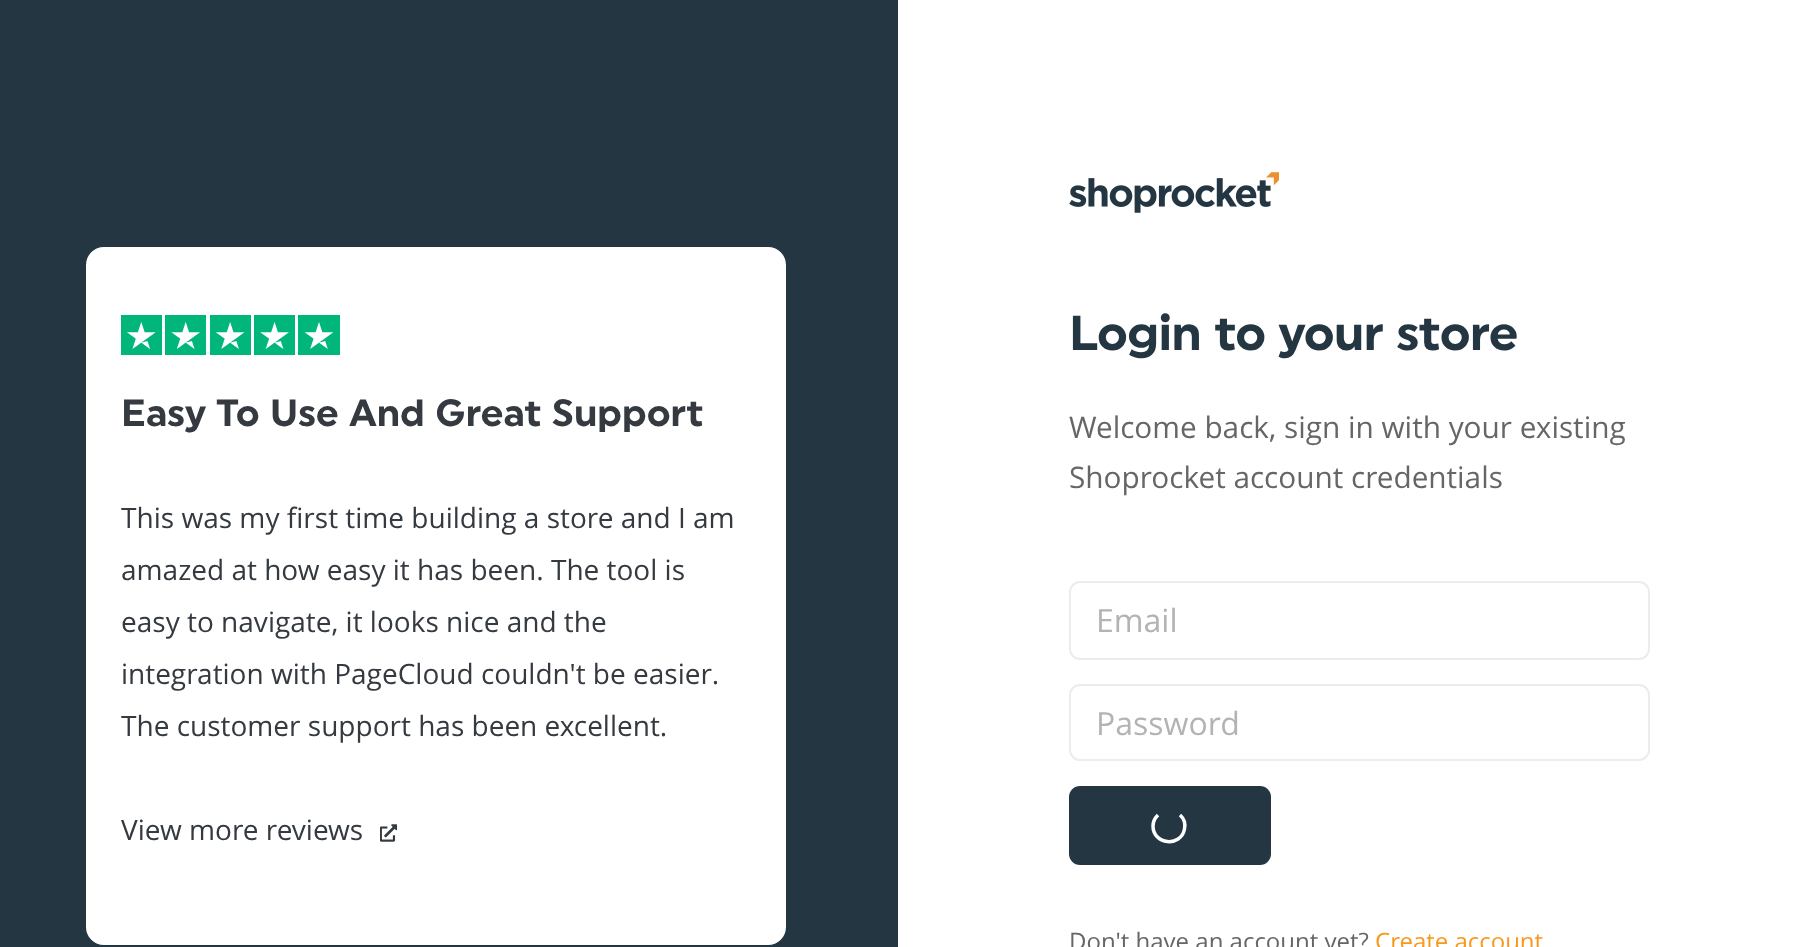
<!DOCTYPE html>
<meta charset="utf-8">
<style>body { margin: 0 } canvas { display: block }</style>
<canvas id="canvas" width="1795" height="947"></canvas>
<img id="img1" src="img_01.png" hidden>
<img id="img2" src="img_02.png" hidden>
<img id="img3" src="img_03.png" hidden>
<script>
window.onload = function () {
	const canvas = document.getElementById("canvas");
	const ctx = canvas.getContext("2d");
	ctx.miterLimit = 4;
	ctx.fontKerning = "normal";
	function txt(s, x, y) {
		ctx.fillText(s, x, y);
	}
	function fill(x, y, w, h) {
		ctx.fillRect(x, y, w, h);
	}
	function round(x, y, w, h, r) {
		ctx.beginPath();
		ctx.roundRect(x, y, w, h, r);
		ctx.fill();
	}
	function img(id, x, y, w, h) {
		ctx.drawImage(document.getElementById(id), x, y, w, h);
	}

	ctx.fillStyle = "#FFFFFF";
	fill(0, 0, 1795, 947);
	ctx.fillStyle = "#233642";
	fill(0, 0, 898, 947);
	ctx.fillStyle = "#FFFFFF";
	round(86, 247, 700, 698, 18);
	img("img1", 121, 315, 219, 40);
	img("img2", 380, 824, 17, 18);
	img("img3", 1069, 172, 210, 41);
	ctx.beginPath();
	ctx.roundRect(1070, 582, 579, 77, 10);
	ctx.strokeStyle = "#ECECEC";
	ctx.lineWidth = 2;
	ctx.stroke();
	ctx.beginPath();
	ctx.roundRect(1070, 685, 579, 75, 10);
	ctx.stroke();
	ctx.fillStyle = "#233642";
	round(1069, 786, 202, 79, 11);
	ctx.beginPath();
	ctx.moveTo(1180, 815);
	ctx.bezierCurveTo(1184, 818.5, 1185.5, 824, 1184.5, 829);
	ctx.bezierCurveTo(1181, 847.5, 1153, 845, 1153, 826);
	ctx.bezierCurveTo(1153, 822, 1155, 818, 1158, 815);
	ctx.strokeStyle = "#FFFFFF";
	ctx.lineWidth = 3.5;
	ctx.stroke();
	ctx.font = "38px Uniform";
	ctx.fillStyle = "#343A40";
	txt("Easy To Use And Great Support", 121, 426);
	ctx.font = "28px Open Sans";
	txt("This was my first time building a store and I am", 121, 528);
	txt("amazed at how easy it has been. The tool is", 121, 580);
	txt("easy to navigate, it looks nice and the", 121, 632);
	txt("integration with PageCloud couldn't be easier.", 121, 684);
	txt("The customer support has been excellent.", 121, 736);
	txt("View more reviews", 121, 840);
	ctx.letterSpacing = "-0.5px";
	ctx.font = "49px Uniform";
	ctx.fillStyle = "#233642";
	txt("Login to your store", 1069, 350);
	ctx.letterSpacing = "0px";
	ctx.font = "29.75px Open Sans";
	ctx.fillStyle = "#666666";
	txt("Welcome back, sign in with your existing", 1069, 438);
	txt("Shoprocket account credentials", 1069, 488);
	ctx.font = "32px Open Sans";
	ctx.fillStyle = "#B3B3B3";
	txt("Email", 1096, 632);
	txt("Password", 1096, 735);
	ctx.font = "24px Open Sans";
	ctx.fillStyle = "#666666";
	txt("Don't have an account yet?", 1069, 950);
	ctx.fillStyle = "#F8981D";
	txt("Create account", 1375, 950);
};
</script>
